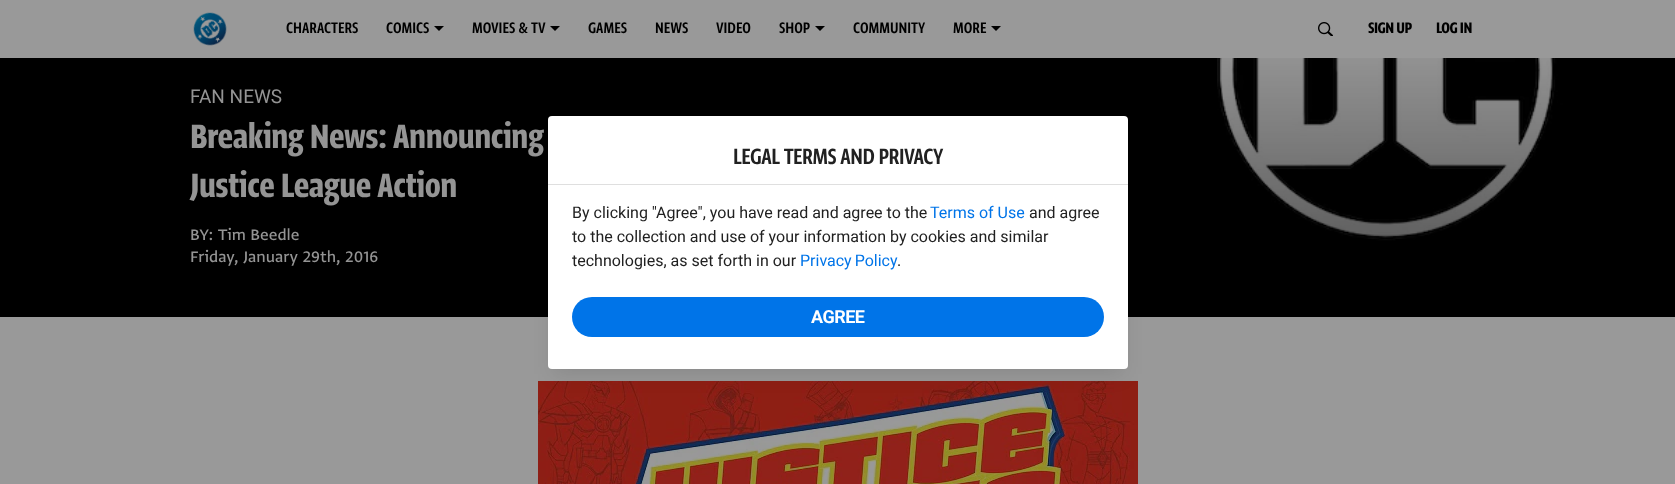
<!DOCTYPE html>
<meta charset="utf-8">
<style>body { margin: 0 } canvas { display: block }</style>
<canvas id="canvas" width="1675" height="484"></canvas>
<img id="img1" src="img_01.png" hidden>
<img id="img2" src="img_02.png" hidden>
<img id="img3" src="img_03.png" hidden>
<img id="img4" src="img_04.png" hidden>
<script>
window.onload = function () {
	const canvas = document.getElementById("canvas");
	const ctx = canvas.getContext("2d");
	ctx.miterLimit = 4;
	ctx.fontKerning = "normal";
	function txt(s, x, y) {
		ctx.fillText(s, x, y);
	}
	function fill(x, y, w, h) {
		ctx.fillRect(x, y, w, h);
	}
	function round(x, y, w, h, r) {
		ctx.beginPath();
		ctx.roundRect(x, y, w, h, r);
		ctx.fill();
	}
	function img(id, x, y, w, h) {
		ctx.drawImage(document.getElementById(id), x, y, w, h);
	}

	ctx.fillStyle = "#999999";
	fill(0, 0, 1675, 484);
	img("img1", 193, 12, 34, 34);
	ctx.fillStyle = "#000000";
	ctx.beginPath();
	ctx.moveTo(434, 26);
	ctx.lineTo(444, 26);
	ctx.lineTo(439, 31);
	ctx.closePath();
	ctx.fill();
	ctx.beginPath();
	ctx.moveTo(550, 26);
	ctx.lineTo(560, 26);
	ctx.lineTo(555, 31);
	ctx.closePath();
	ctx.fill();
	ctx.beginPath();
	ctx.moveTo(815, 26);
	ctx.lineTo(825, 26);
	ctx.lineTo(820, 31);
	ctx.closePath();
	ctx.fill();
	ctx.beginPath();
	ctx.moveTo(991, 26);
	ctx.lineTo(1001, 26);
	ctx.lineTo(996, 31);
	ctx.closePath();
	ctx.fill();
	img("img2", 1318, 22, 15, 14);
	img("img3", 0, 58, 1675, 259);
	img("img4", 538, 381, 600, 103);
	ctx.fillStyle = "rgba(0, 0, 0, 0.1)";
	ctx.filter = "blur(10px)";
	ctx.beginPath();
	ctx.rect(553, 131, 570, 243);
	ctx.fill();
	ctx.filter = "none";
	ctx.fillStyle = "#FFFFFF";
	round(548, 116, 580, 253, 4);
	ctx.fillStyle = "#DFDFDF";
	fill(548, 184, 580, 1);
	ctx.fillStyle = "#0074E8";
	round(572, 297, 532, 40, 20);
	ctx.font = "600 18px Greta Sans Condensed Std";
	ctx.fillStyle = "#000000";
	txt("CHARACTERS", 286, 33);
	txt("COMICS", 386, 33);
	txt("MOVIES & TV", 472, 33);
	txt("GAMES", 588, 33);
	txt("NEWS", 655, 33);
	txt("VIDEO", 716, 33);
	txt("SHOP", 779, 33);
	txt("COMMUNITY", 853, 33);
	txt("MORE", 953, 33);
	ctx.letterSpacing = "-0.5px";
	ctx.font = "bold 18px Greta Sans Condensed Std";
	txt("SIGN UP", 1368, 33);
	txt("LOG IN", 1436, 33);
	ctx.letterSpacing = "0px";
	ctx.font = "19px Roboto";
	ctx.fillStyle = "#949494";
	txt("FAN NEWS", 190, 103);
	ctx.letterSpacing = "-0.5px";
	ctx.font = "bold 40px Greta Sans Condensed Std";
	txt("Breaking News: Announcing", 190, 148);
	txt("Justice League Action", 190, 197);
	ctx.letterSpacing = "0px";
	ctx.font = "500 18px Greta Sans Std";
	txt("BY: Tim Beedle", 190, 240);
	txt("Friday, January 29th, 2016", 190, 262);
	ctx.letterSpacing = "-0.5px";
	ctx.font = "600 26px Greta Sans Condensed Std";
	ctx.fillStyle = "#212121";
	txt("LEGAL TERMS AND PRIVACY", 733, 164);
	ctx.letterSpacing = "0px";
	ctx.font = "16px Roboto";
	txt("By clicking \"Agree\", you have read and agree to the", 572, 218);
	ctx.fillStyle = "#0074E8";
	txt("Terms of Use", 930, 218);
	ctx.fillStyle = "#212121";
	txt("and agree", 1029, 218);
	txt("to the collection and use of your information by cookies and similar", 572, 242);
	txt("technologies, as set forth in our", 572, 266);
	ctx.wordSpacing = "-1px";
	ctx.fillStyle = "#0074E8";
	txt("Privacy Policy", 800, 266);
	ctx.wordSpacing = "0px";
	ctx.fillStyle = "#212121";
	txt(".", 897, 266);
	ctx.letterSpacing = "-0.5px";
	ctx.font = "bold 18px Roboto";
	ctx.fillStyle = "#FFFFFF";
	txt("AGREE", 811, 323);
};
</script>
